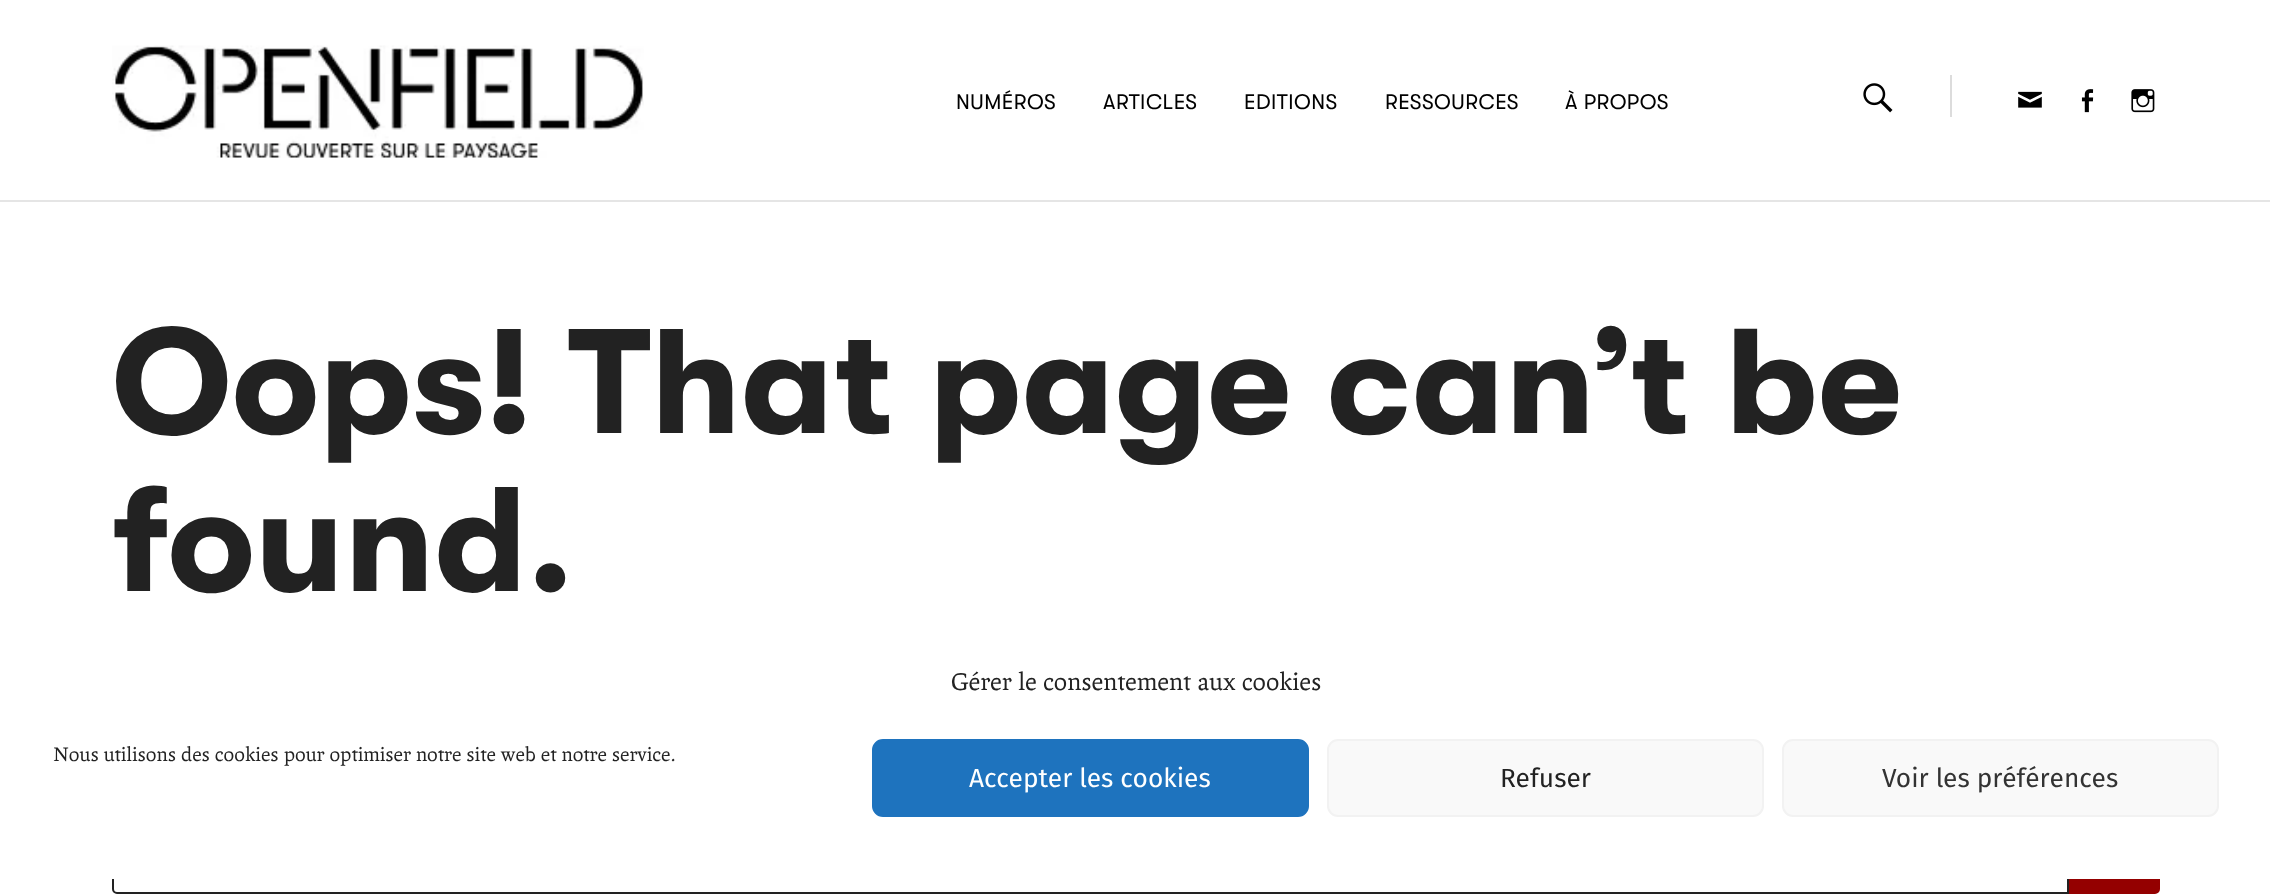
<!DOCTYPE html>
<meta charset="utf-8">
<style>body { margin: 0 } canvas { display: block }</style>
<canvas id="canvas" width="2270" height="896"></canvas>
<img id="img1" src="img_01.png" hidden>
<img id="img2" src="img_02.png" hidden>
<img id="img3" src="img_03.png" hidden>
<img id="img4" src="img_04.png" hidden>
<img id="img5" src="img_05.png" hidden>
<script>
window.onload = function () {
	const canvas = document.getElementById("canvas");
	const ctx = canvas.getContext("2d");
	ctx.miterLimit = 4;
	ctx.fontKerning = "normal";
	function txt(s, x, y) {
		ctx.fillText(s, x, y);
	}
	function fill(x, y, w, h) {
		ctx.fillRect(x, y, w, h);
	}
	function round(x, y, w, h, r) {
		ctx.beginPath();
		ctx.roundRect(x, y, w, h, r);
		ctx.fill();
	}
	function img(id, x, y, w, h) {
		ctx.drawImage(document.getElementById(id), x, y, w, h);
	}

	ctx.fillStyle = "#FFFFFF";
	fill(0, 0, 2270, 896);
	ctx.fillStyle = "#E5E5E5";
	fill(0, 200, 2270, 2);
	img("img1", 112, 45, 532, 113);
	ctx.fillStyle = "#DCDCDC";
	fill(1950, 75, 2, 42);
	img("img2", 1863, 83, 30, 30);
	img("img3", 2018, 91, 24, 17);
	img("img4", 2081, 89, 13, 24);
	img("img5", 2131, 89, 24, 24);
	ctx.beginPath();
	ctx.roundRect(113, 822, 1955, 71, [4, 0, 0, 4]);
	ctx.strokeStyle = "#222222";
	ctx.lineWidth = 2;
	ctx.stroke();
	ctx.fillStyle = "#940000";
	ctx.beginPath();
	ctx.roundRect(2070, 822, 89, 71, [0, 4, 4, 0]);
	ctx.fill();
	ctx.strokeStyle = "#940000";
	ctx.stroke();
	ctx.fillStyle = "#FFFFFF";
	round(18, 639, 2236, 240, 21);
	ctx.fillStyle = "#1E73BE";
	ctx.beginPath();
	ctx.roundRect(873, 740, 435, 76, 10);
	ctx.fill();
	ctx.strokeStyle = "#1E73BE";
	ctx.stroke();
	ctx.fillStyle = "#F9F9F9";
	ctx.beginPath();
	ctx.roundRect(1328, 740, 435, 76, 10);
	ctx.fill();
	ctx.strokeStyle = "#F2F2F2";
	ctx.stroke();
	ctx.beginPath();
	ctx.roundRect(1783, 740, 435, 76, 10);
	ctx.fill();
	ctx.stroke();
	ctx.letterSpacing = "0.5px";
	ctx.font = "21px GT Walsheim";
	ctx.fillStyle = "#000000";
	txt("NUMÉROS", 956, 109);
	txt("ARTICLES", 1103, 109);
	txt("EDITIONS", 1244, 109);
	txt("RESSOURCES", 1385, 109);
	txt("À PROPOS", 1565, 109);
	ctx.letterSpacing = "0px";
	ctx.font = "bold 148.75px GT Walsheim";
	ctx.fillStyle = "#222222";
	txt("Oops! That page can’t be", 112, 433);
	txt("found.", 112, 591);
	ctx.font = "26.25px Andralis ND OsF";
	txt("Gérer le consentement aux cookies", 951, 690);
	ctx.font = "21px Andralis ND OsF";
	txt("Nous utilisons des cookies pour optimiser notre site web et notre service.", 53, 761);
	ctx.font = "26.25px Fira Sans";
	ctx.fillStyle = "#FFFFFF";
	txt("Accepter les cookies", 969, 787);
	ctx.fillStyle = "#222222";
	txt("Refuser", 1500, 787);
	ctx.fillStyle = "#333333";
	txt("Voir les préférences", 1882, 787);
};
</script>
